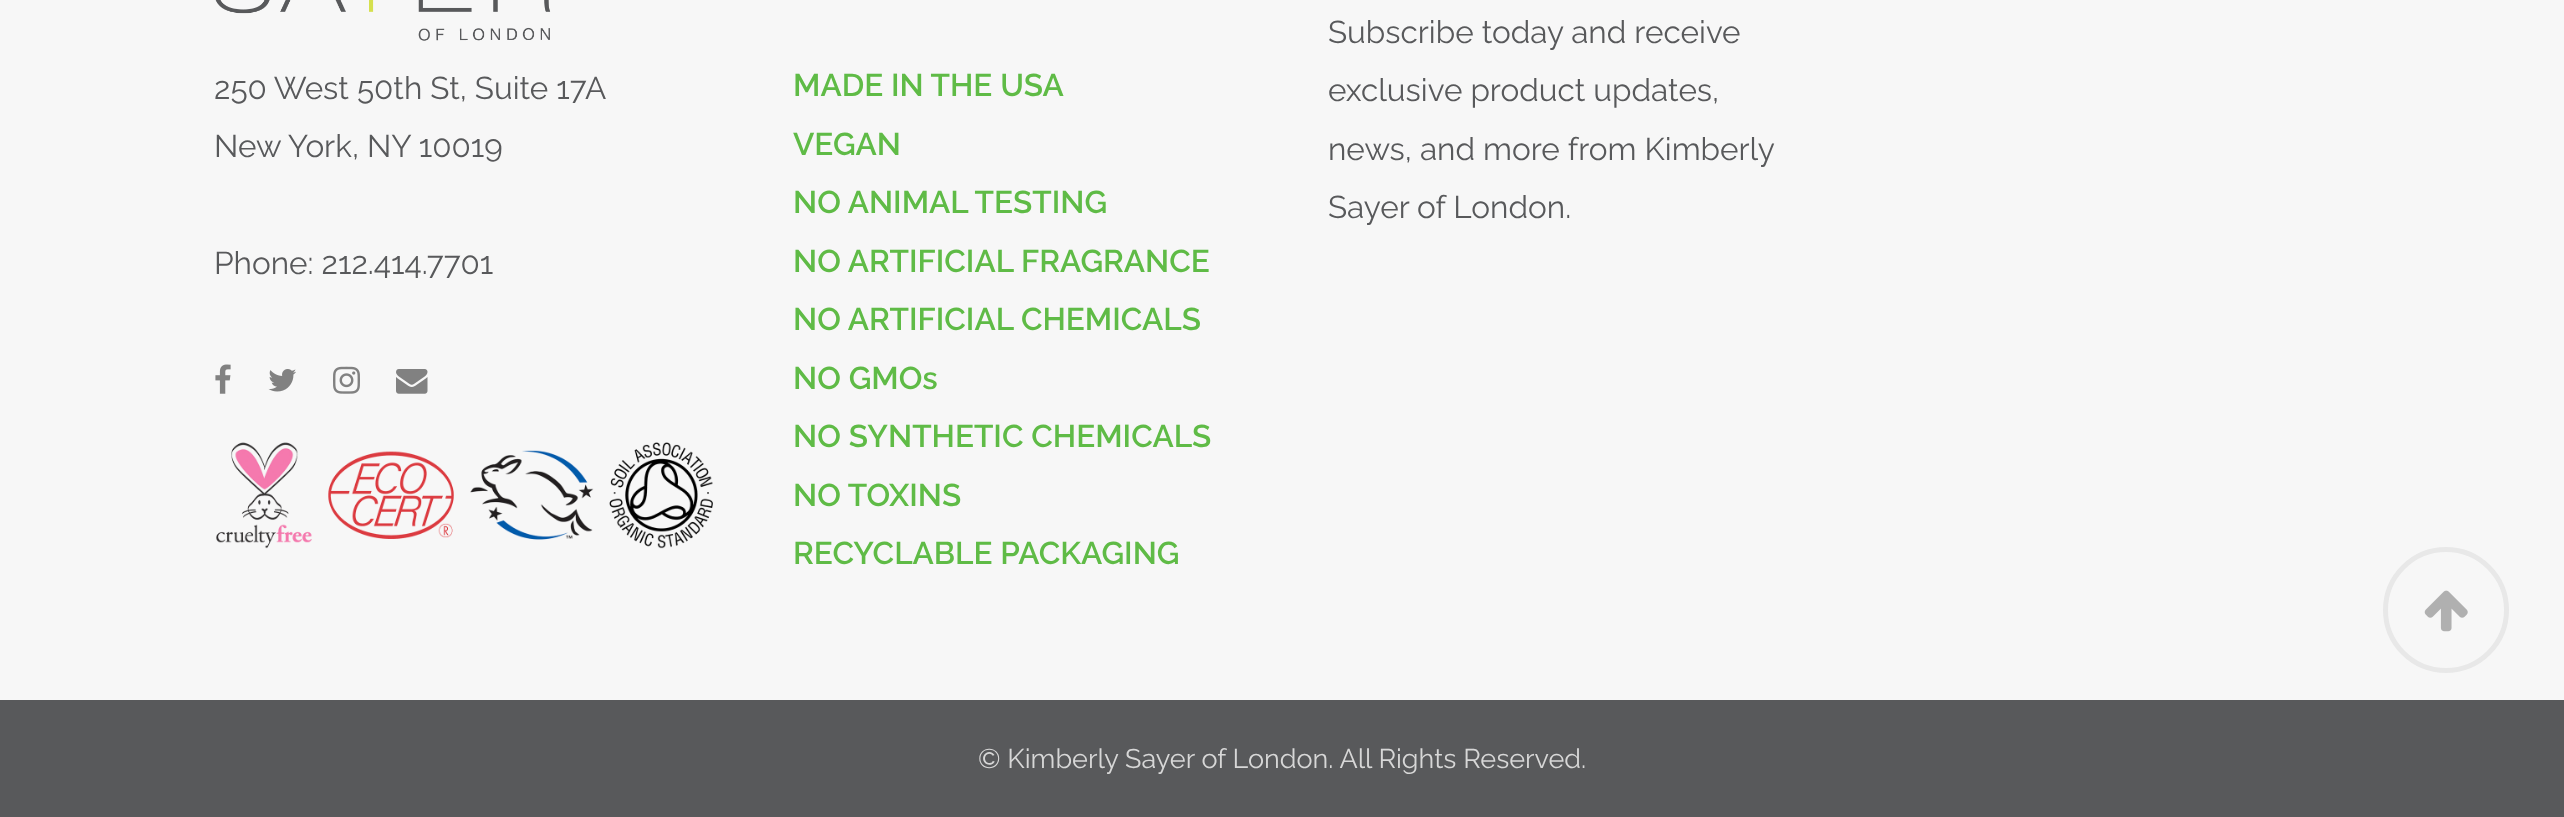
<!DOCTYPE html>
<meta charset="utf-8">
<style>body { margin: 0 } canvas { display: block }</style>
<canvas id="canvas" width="2564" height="817"></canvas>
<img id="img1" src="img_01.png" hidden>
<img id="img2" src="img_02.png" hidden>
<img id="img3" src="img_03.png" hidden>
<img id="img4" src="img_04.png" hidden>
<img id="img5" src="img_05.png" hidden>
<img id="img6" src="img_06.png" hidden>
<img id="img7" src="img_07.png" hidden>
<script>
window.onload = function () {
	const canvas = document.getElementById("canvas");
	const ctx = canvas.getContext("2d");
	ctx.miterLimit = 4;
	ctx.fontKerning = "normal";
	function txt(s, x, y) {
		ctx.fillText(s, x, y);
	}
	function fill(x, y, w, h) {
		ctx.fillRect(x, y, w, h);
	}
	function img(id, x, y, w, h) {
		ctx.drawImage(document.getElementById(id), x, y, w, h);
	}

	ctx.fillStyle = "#58595B";
	fill(0, 0, 2564, 817);
	ctx.fillStyle = "#F7F7F7";
	fill(0, 0, 2564, 700);
	img("img1", 215, 0, 336, 41);
	img("img2", 215, 364, 16, 30);
	img("img3", 268, 369, 28, 23);
	img("img4", 333, 366, 27, 28);
	img("img5", 396, 369, 32, 25);
	img("img6", 216, 442, 497, 107);
	ctx.beginPath();
	ctx.arc(2446, 610, 60.5, 0, Math.PI * 2);
	ctx.strokeStyle = "#E8E8E8";
	ctx.lineWidth = 5;
	ctx.stroke();
	img("img7", 2424, 590, 44, 42);
	ctx.font = "31.5px Raleway";
	ctx.fillStyle = "#58595B";
	txt("250 West 50th St, Suite 17A", 214, 99);
	txt("New York, NY 10019", 214, 157);
	txt("Phone: 212.414.7701", 214, 274);
	ctx.font = "600 31.5px Raleway";
	ctx.fillStyle = "#5FBB46";
	txt("MADE IN THE USA", 793, 96);
	txt("VEGAN", 793, 155);
	txt("NO ANIMAL TESTING", 793, 213);
	txt("NO ARTIFICIAL FRAGRANCE", 793, 272);
	txt("NO ARTIFICIAL CHEMICALS", 793, 330);
	txt("NO GMOs", 793, 389);
	txt("NO SYNTHETIC CHEMICALS", 793, 447);
	txt("NO TOXINS", 793, 506);
	txt("RECYCLABLE PACKAGING", 793, 564);
	ctx.font = "31.5px Raleway";
	ctx.fillStyle = "#58595B";
	txt("Subscribe today and receive", 1328, 43);
	txt("exclusive product updates,", 1328, 101);
	txt("news, and more from Kimberly", 1328, 160);
	txt("Sayer of London.", 1328, 218);
	ctx.font = "27px Raleway";
	ctx.fillStyle = "#D7D7D7";
	txt("© Kimberly Sayer of London. All Rights Reserved.", 978, 768);
};
</script>
